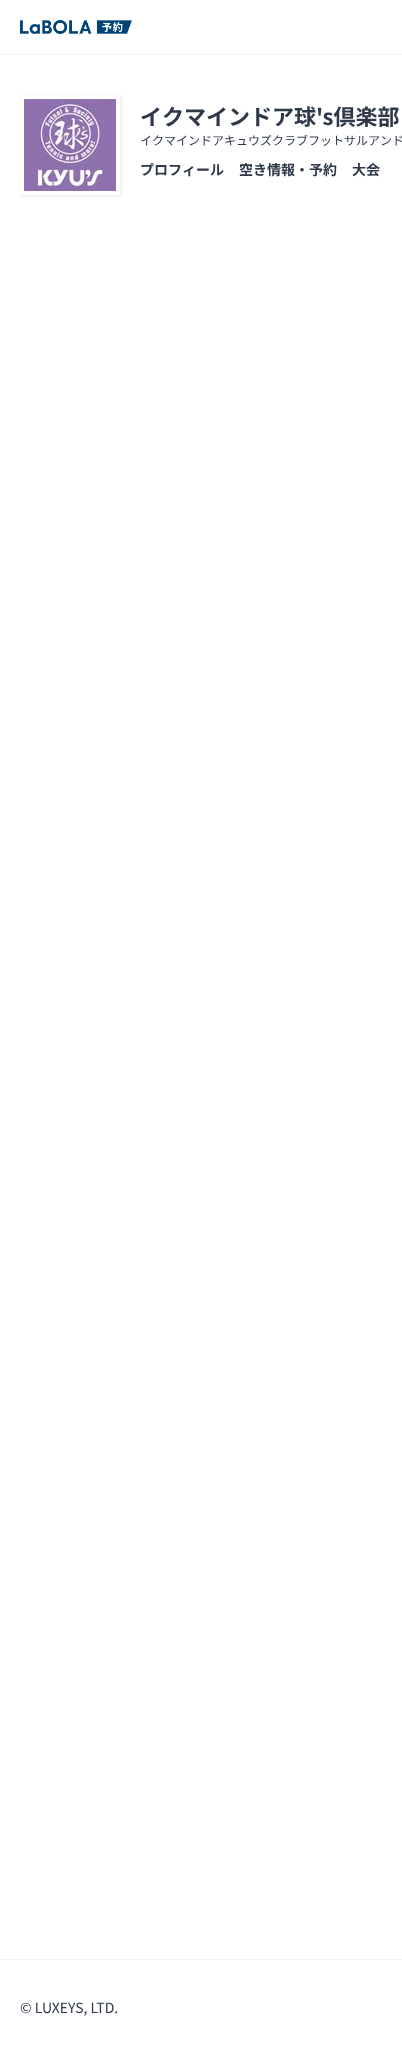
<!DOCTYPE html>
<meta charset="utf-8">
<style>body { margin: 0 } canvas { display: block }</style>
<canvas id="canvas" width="402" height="2054"></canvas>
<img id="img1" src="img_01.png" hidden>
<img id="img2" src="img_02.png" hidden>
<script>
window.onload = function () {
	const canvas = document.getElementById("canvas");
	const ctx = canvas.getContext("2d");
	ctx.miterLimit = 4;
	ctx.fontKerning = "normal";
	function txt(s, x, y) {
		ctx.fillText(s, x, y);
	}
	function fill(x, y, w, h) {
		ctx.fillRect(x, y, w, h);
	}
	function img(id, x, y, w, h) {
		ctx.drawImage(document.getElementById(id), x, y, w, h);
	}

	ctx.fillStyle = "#FFFFFF";
	fill(0, 0, 402, 2054);
	ctx.fillStyle = "#EBF1F4";
	fill(0, 54, 402, 1);
	img("img1", 20, 20, 112, 14);
	ctx.fillStyle = "rgba(0, 0, 0, 0.1)";
	ctx.filter = "blur(2px)";
	ctx.beginPath();
	ctx.rect(21, 96, 100, 100);
	ctx.fill();
	ctx.filter = "none";
	img("img2", 24, 99, 92, 92);
	ctx.strokeStyle = "#FFFFFF";
	ctx.lineWidth = 4;
	ctx.strokeRect(22, 97, 96, 96);
	ctx.fillStyle = "#EBF1F4";
	fill(0, 1959, 402, 1);
	ctx.font = "bold 22px Noto Sans JP";
	ctx.fillStyle = "#2E3849";
	txt("イクマインドア球's倶楽部", 140, 125);
	ctx.font = "12px Noto Sans JP";
	txt("イクマインドアキュウズクラブフットサルアンド", 140, 145);
	ctx.font = "bold 14px Noto Sans JP";
	txt("プロフィール", 140, 175);
	txt("空き情報・予約", 239, 175);
	txt("大会", 352, 175);
	ctx.font = "14px Noto Sans JP";
	txt("©︎ LUXEYS, LTD.", 20, 2013);
};
</script>
